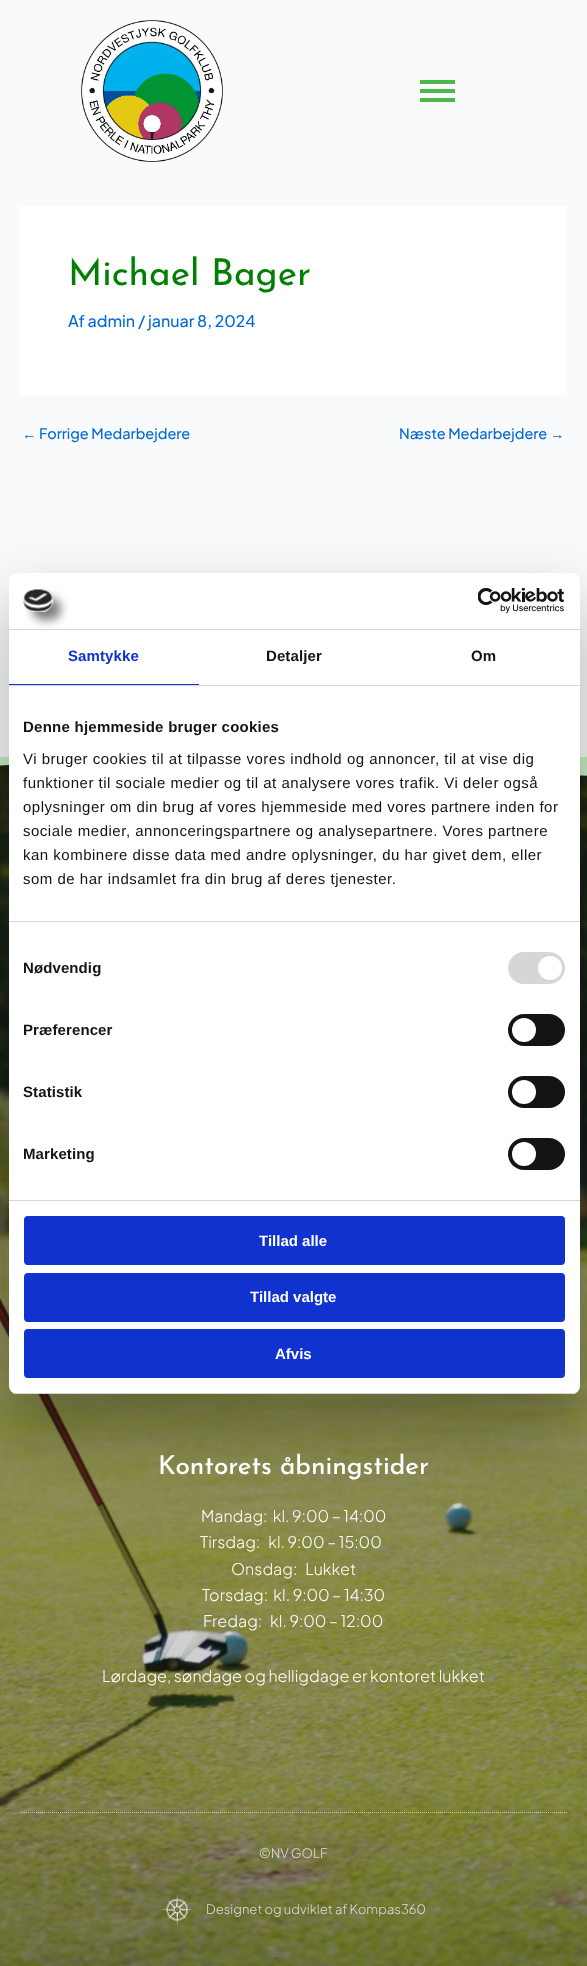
<!DOCTYPE html>
<meta charset="utf-8">
<style>body { margin: 0 } canvas { display: block }</style>
<canvas id="canvas" width="587" height="1966"></canvas>
<img id="img1" src="img_01.png" hidden>
<img id="img2" src="img_02.png" hidden>
<img id="img3" src="img_03.png" hidden>
<img id="img4" src="img_04.png" hidden>
<img id="img5" src="img_05.png" hidden>
<script>
window.onload = function () {
	const canvas = document.getElementById("canvas");
	const ctx = canvas.getContext("2d");
	ctx.miterLimit = 4;
	ctx.fontKerning = "normal";
	function txt(s, x, y) {
		ctx.fillText(s, x, y);
	}
	function fill(x, y, w, h) {
		ctx.fillRect(x, y, w, h);
	}
	function round(x, y, w, h, r) {
		ctx.beginPath();
		ctx.roundRect(x, y, w, h, r);
		ctx.fill();
	}
	function img(id, x, y, w, h) {
		ctx.drawImage(document.getElementById(id), x, y, w, h);
	}

	ctx.fillStyle = "#F9FAFB";
	fill(0, 0, 587, 1966);
	img("img1", 81, 20, 142, 142);
	ctx.fillStyle = "#4CB74D";
	fill(420, 80, 35, 4);
	fill(420, 89, 35, 4);
	fill(420, 98, 35, 4);
	ctx.fillStyle = "#FFFFFF";
	fill(20, 206, 547, 190);
	img("img2", 0, 765, 587, 1201);
	ctx.fillStyle = "#C7EEC7";
	ctx.beginPath();
	ctx.moveTo(181, 758);
	ctx.bezierCurveTo(304, 756, 427, 769, 550, 774);
	ctx.bezierCurveTo(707, 782, 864, 782, 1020, 773);
	ctx.lineTo(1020, 757);
	ctx.lineTo(-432, 757);
	ctx.lineTo(-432, 764);
	ctx.bezierCurveTo(-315, 772, -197, 773, -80, 769);
	ctx.bezierCurveTo(-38, 768, 5, 765, 47, 763);
	ctx.bezierCurveTo(92, 761, 136, 759, 181, 758);
	ctx.closePath();
	ctx.fill();
	ctx.beginPath();
	ctx.moveTo(20, 1812.5);
	ctx.lineTo(567, 1812.5);
	ctx.strokeStyle = "rgba(255, 255, 255, 0.59)";
	ctx.setLineDash([1, 1]);
	ctx.stroke();
	img("img3", 161, 1894, 32, 32);
	ctx.fillStyle = "rgba(0, 0, 0, 0.3)";
	ctx.filter = "blur(34px)";
	ctx.beginPath();
	ctx.roundRect(9, 605, 571, 821, 8);
	ctx.fill();
	ctx.filter = "none";
	ctx.fillStyle = "#FFFFFF";
	round(9, 573, 571, 821, 8);
	ctx.fillStyle = "#D6D6D6";
	fill(9, 629, 571, 1);
	ctx.save();
	ctx.beginPath();
	ctx.moveTo(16, 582);
	ctx.lineTo(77, 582);
	ctx.lineTo(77, 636);
	ctx.lineTo(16, 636);
	ctx.closePath();
	ctx.moveTo(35, 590);
	ctx.lineTo(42, 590);
	ctx.bezierCurveTo(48, 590, 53, 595, 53, 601);
	ctx.bezierCurveTo(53, 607, 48, 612, 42, 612);
	ctx.lineTo(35, 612);
	ctx.bezierCurveTo(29, 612, 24, 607, 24, 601);
	ctx.bezierCurveTo(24, 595, 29, 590, 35, 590);
	ctx.closePath();
	ctx.clip("evenodd");
	ctx.fillStyle = "rgba(0, 0, 0, 0.5)";
	ctx.filter = "blur(5px)";
	ctx.beginPath();
	ctx.roundRect(32, 598, 29, 22, 11);
	ctx.fill();
	ctx.filter = "none";
	ctx.restore();
	img("img4", 23, 589, 30, 23);
	img("img5", 478, 588, 87, 25);
	fill(9, 685, 571, 1);
	ctx.fillStyle = "#1032CF";
	fill(9, 684, 190, 1);
	ctx.fillStyle = "#D6D6D6";
	fill(9, 921, 571, 1);
	fill(9, 1200, 571, 1);
	round(508, 952, 57, 32, 16);
	ctx.fillStyle = "#FFFFFF";
	ctx.beginPath();
	ctx.arc(550, 968, 12, 0, Math.PI * 2);
	ctx.fill();
	ctx.fillStyle = "#141414";
	round(508, 1014, 57, 32, 16);
	ctx.fillStyle = "#FFFFFF";
	ctx.beginPath();
	ctx.arc(524, 1030, 12, 0, Math.PI * 2);
	ctx.fill();
	ctx.fillStyle = "#141414";
	round(508, 1076, 57, 32, 16);
	ctx.fillStyle = "#FFFFFF";
	ctx.beginPath();
	ctx.arc(524, 1092, 12, 0, Math.PI * 2);
	ctx.fill();
	ctx.fillStyle = "#141414";
	round(508, 1138, 57, 32, 16);
	ctx.fillStyle = "#FFFFFF";
	ctx.beginPath();
	ctx.arc(524, 1154, 12, 0, Math.PI * 2);
	ctx.fill();
	ctx.save();
	ctx.beginPath();
	ctx.roundRect(9, 573, 571, 821, 8);
	ctx.clip();
	ctx.fillStyle = "#D6D6D6";
	fill(9, 1393, 571, 1);
	ctx.restore();
	ctx.fillStyle = "#1032CF";
	ctx.beginPath();
	ctx.roundRect(25, 1217, 539, 47, 3);
	ctx.fill();
	ctx.strokeStyle = "#1032CF";
	ctx.lineWidth = 2;
	ctx.setLineDash([]);
	ctx.stroke();
	ctx.beginPath();
	ctx.roundRect(25, 1274, 539, 47, 3);
	ctx.fill();
	ctx.stroke();
	ctx.beginPath();
	ctx.roundRect(25, 1330, 539, 47, 3);
	ctx.fill();
	ctx.stroke();
	ctx.font = "37px Josefin Sans";
	ctx.fillStyle = "#008000";
	txt("Michael Bager", 68, 285);
	ctx.font = "500 16px Plus Jakarta Sans";
	ctx.fillStyle = "#046BD2";
	txt("Af admin / januar 8, 2024", 68, 327);
	ctx.font = "14.5px Liberation Sans";
	txt("←", 22, 439);
	ctx.font = "500 14.5px Plus Jakarta Sans";
	txt("Forrige Medarbejdere", 39, 439);
	txt("Næste Medarbejdere", 399, 439);
	ctx.font = "14.5px Liberation Sans";
	txt("→", 550, 439);
	ctx.font = "500 26px Josefin Sans";
	ctx.fillStyle = "#FFFFFF";
	txt("Kontorets åbningstider", 158, 1474);
	ctx.font = "300 16px Plus Jakarta Sans";
	txt("Mandag:  kl. 9:00 – 14:00", 201, 1522);
	txt("Tirsdag:   kl. 9:00 – 15:00", 200, 1548);
	txt("Onsdag:   Lukket", 231, 1575);
	txt("Torsdag:  kl. 9:00 – 14:30", 202, 1601);
	txt("Fredag:   kl. 9:00 – 12:00", 203, 1627);
	txt("Lørdage, søndage og helligdage er kontoret lukket", 102, 1682);
	ctx.font = "300 13px Plus Jakarta Sans";
	ctx.fillStyle = "#DBDBDB";
	txt("©NV GOLF", 259, 1858);
	txt("Designet og udviklet af Kompas360", 206, 1914);
	ctx.letterSpacing = "0.1px";
	ctx.font = "bold 15px Liberation Sans";
	ctx.fillStyle = "#1032CF";
	txt("Samtykke", 68, 661);
	ctx.fillStyle = "#141414";
	txt("Detaljer", 266, 661);
	txt("Om", 471, 661);
	ctx.letterSpacing = "0.25px";
	txt("Denne hjemmeside bruger cookies", 23, 732);
	ctx.letterSpacing = "0.5px";
	ctx.font = "15px Liberation Sans";
	txt("Vi bruger cookies til at tilpasse vores indhold og annoncer, til at vise dig", 23, 764);
	txt("funktioner til sociale medier og til at analysere vores trafik. Vi deler også", 23, 788);
	txt("oplysninger om din brug af vores hjemmeside med vores partnere inden for", 23, 812);
	txt("sociale medier, annonceringspartnere og analysepartnere. Vores partnere", 23, 836);
	txt("kan kombinere disse data med andre oplysninger, du har givet dem, eller", 23, 860);
	txt("som de har indsamlet fra din brug af deres tjenester.", 23, 884);
	ctx.letterSpacing = "0.1px";
	ctx.font = "bold 15px Liberation Sans";
	txt("Nødvendig", 23, 973);
	txt("Præferencer", 23, 1035);
	txt("Statistik", 23, 1097);
	txt("Marketing", 23, 1159);
	ctx.letterSpacing = "0px";
	ctx.fillStyle = "#FFFFFF";
	txt("Tillad alle", 259, 1246);
	txt("Tillad valgte", 250, 1302);
	txt("Afvis", 275, 1359);
};
</script>
